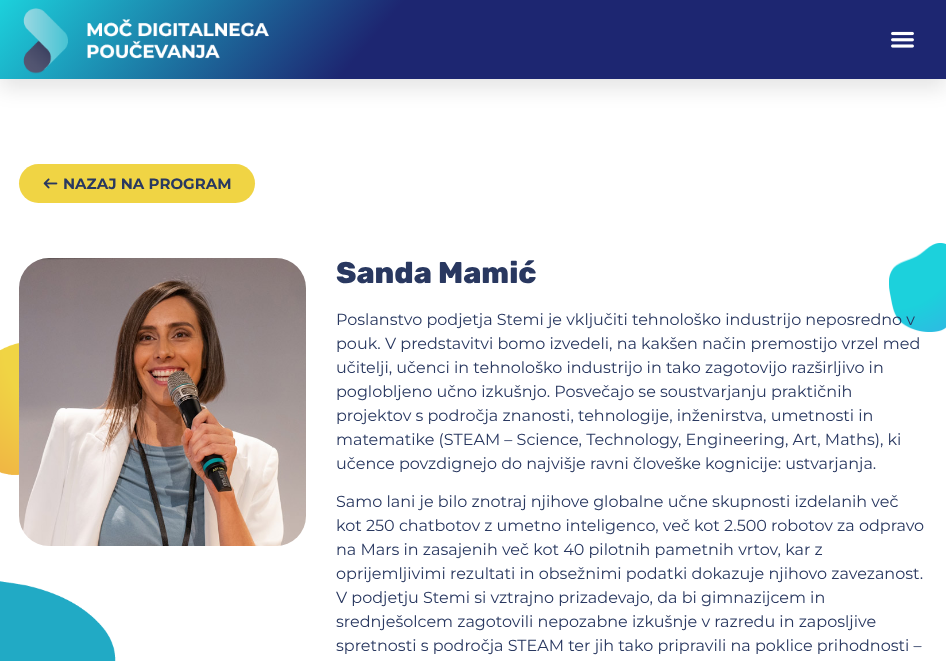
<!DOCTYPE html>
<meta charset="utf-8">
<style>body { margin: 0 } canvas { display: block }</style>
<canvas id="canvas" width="946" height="661"></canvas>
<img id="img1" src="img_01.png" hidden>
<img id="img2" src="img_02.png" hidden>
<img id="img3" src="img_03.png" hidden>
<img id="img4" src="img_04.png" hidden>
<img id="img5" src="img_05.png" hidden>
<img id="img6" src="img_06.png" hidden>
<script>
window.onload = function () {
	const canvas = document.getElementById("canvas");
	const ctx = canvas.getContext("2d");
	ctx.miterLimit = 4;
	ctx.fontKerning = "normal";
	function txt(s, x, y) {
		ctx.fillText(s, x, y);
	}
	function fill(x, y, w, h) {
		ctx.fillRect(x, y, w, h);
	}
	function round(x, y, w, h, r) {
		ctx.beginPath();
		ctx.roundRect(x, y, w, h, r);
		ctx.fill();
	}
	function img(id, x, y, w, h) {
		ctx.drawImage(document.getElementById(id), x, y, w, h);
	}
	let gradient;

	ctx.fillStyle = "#FFFFFF";
	fill(0, 0, 946, 661);
	ctx.fillStyle = "rgba(0, 0, 0, 0.1)";
	ctx.filter = "blur(10px)";
	ctx.beginPath();
	ctx.rect(0, 10, 946, 79);
	ctx.fill();
	ctx.filter = "none";
	gradient = ctx.createLinearGradient(176, -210, 770, 289);
	gradient.addColorStop(0, "#1CD1DC");
	gradient.addColorStop(0.4, "#1D2671");
	ctx.fillStyle = gradient;
	fill(0, 0, 946, 79);
	img("img1", 23, 8, 246, 66);
	img("img2", 891, 31, 23, 17);
	ctx.fillStyle = "#F0D444";
	round(19, 164, 236, 39, 19.5);
	img("img3", 43, 178, 15, 11);
	img("img4", 0, 342, 116, 319);
	img("img5", 889, 243, 57, 89);
	img("img6", 19, 258, 287, 288);
	ctx.font = "bold 15px Montserrat";
	ctx.fillStyle = "#293860";
	txt("NAZAJ NA PROGRAM", 63, 189);
	ctx.font = "800 30px Rubik";
	txt("Sanda Mamić", 336, 283);
	ctx.font = "16px Montserrat";
	txt("Poslanstvo podjetja Stemi je vključiti tehnološko industrijo neposredno v", 336, 325);
	txt("pouk. V predstavitvi bomo izvedeli, na kakšen način premostijo vrzel med", 336, 349);
	txt("učitelji, učenci in tehnološko industrijo in tako zagotovijo razširljivo in", 336, 373);
	txt("poglobljeno učno izkušnjo. Posvečajo se soustvarjanju praktičnih", 336, 397);
	txt("projektov s področja znanosti, tehnologije, inženirstva, umetnosti in", 336, 421);
	txt("matematike (STEAM – Science, Technology, Engineering, Art, Maths), ki", 336, 445);
	txt("učence povzdignejo do najvišje ravni človeške kognicije: ustvarjanja.", 336, 469);
	txt("Samo lani je bilo znotraj njihove globalne učne skupnosti izdelanih več", 336, 507);
	txt("kot 250 chatbotov z umetno inteligenco, več kot 2.500 robotov za odpravo", 336, 531);
	txt("na Mars in zasajenih več kot 40 pilotnih pametnih vrtov, kar z", 336, 555);
	txt("oprijemljivimi rezultati in obsežnimi podatki dokazuje njihovo zavezanost.", 336, 579);
	txt("V podjetju Stemi si vztrajno prizadevajo, da bi gimnazijcem in", 336, 603);
	txt("srednješolcem zagotovili nepozabne izkušnje v razredu in zaposljive", 336, 627);
	txt("spretnosti s področja STEAM ter jih tako pripravili na poklice prihodnosti –", 336, 651);
};
</script>
